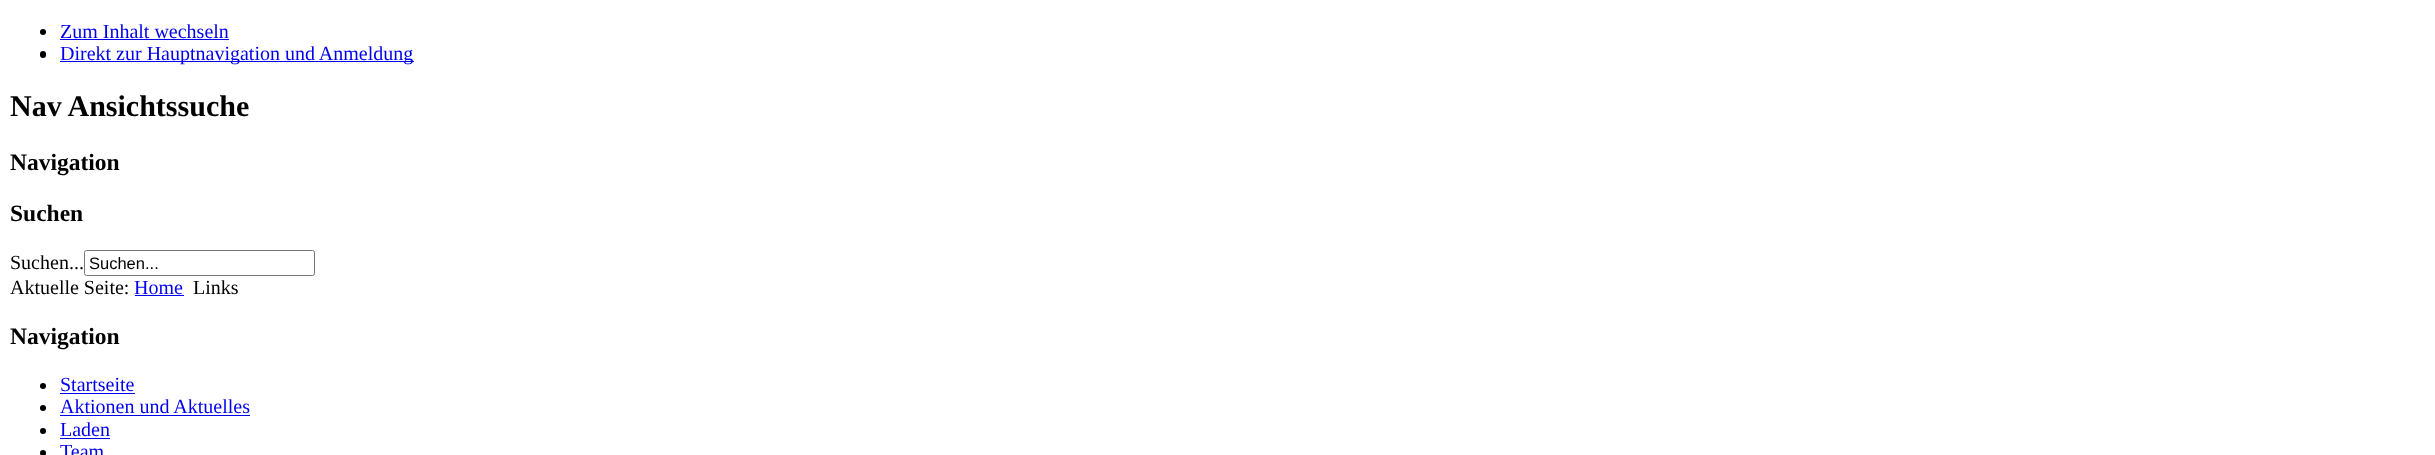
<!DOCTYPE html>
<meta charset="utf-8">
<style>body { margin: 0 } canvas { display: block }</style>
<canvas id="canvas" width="2435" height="455"></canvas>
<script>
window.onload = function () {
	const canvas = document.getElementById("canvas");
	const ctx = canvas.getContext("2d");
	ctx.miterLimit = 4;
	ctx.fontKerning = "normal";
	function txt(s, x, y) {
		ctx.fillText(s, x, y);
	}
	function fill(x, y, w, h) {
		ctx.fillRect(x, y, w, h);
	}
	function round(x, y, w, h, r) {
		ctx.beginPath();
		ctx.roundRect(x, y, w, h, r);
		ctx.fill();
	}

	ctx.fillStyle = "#FFFFFF";
	fill(0, 0, 2435, 455);
	ctx.fillStyle = "#000000";
	ctx.beginPath();
	ctx.arc(43, 32, 3, 0, Math.PI * 2);
	ctx.fill();
	ctx.fillStyle = "#0000EE";
	fill(60, 39, 169, 1);
	ctx.fillStyle = "#000000";
	round(40, 51, 6, 7, 3);
	ctx.fillStyle = "#0000EE";
	fill(60, 61, 354, 1);
	ctx.beginPath();
	ctx.roundRect(84.5, 250.5, 230, 25, 2);
	ctx.strokeStyle = "#767676";
	ctx.stroke();
	fill(135, 295, 49, 1);
	ctx.fillStyle = "#000000";
	ctx.beginPath();
	ctx.arc(43, 386, 3, 0, Math.PI * 2);
	ctx.fill();
	ctx.fillStyle = "#0000EE";
	fill(60, 393, 75, 1);
	ctx.fillStyle = "#000000";
	ctx.beginPath();
	ctx.arc(43, 408, 3, 0, Math.PI * 2);
	ctx.fill();
	ctx.fillStyle = "#0000EE";
	fill(60, 415, 190, 1);
	ctx.fillStyle = "#000000";
	ctx.beginPath();
	ctx.arc(43, 431, 3, 0, Math.PI * 2);
	ctx.fill();
	ctx.fillStyle = "#0000EE";
	fill(60, 438, 50, 1);
	ctx.fillStyle = "#000000";
	ctx.beginPath();
	ctx.arc(43, 453, 3, 0, Math.PI * 2);
	ctx.fill();
	ctx.font = "20px Liberation Serif";
	ctx.fillStyle = "#0000EE";
	txt("Zum Inhalt wechseln", 60, 38);
	txt("Direkt zur Hauptnavigation und Anmeldung", 60, 60);
	ctx.font = "bold 30px Liberation Serif";
	ctx.fillStyle = "#000000";
	txt("Nav Ansichtssuche", 10, 116);
	ctx.font = "bold 23.5px Liberation Serif";
	txt("Navigation", 10, 170);
	txt("Suchen", 10, 221);
	ctx.font = "20px Liberation Serif";
	txt("Suchen...", 10, 269);
	ctx.font = "16.5px Liberation Sans";
	txt("Suchen...", 89, 269);
	ctx.font = "20px Liberation Serif";
	txt("Aktuelle Seite:", 10, 294);
	ctx.fillStyle = "#0000EE";
	txt("Home", 134, 294);
	ctx.fillStyle = "#000000";
	txt("Links", 193, 294);
	ctx.font = "bold 23.5px Liberation Serif";
	txt("Navigation", 10, 344);
	ctx.font = "20px Liberation Serif";
	ctx.fillStyle = "#0000EE";
	txt("Startseite", 60, 391);
	txt("Aktionen und Aktuelles", 60, 413);
	txt("Laden", 60, 436);
	txt("Team", 60, 458);
};
</script>
